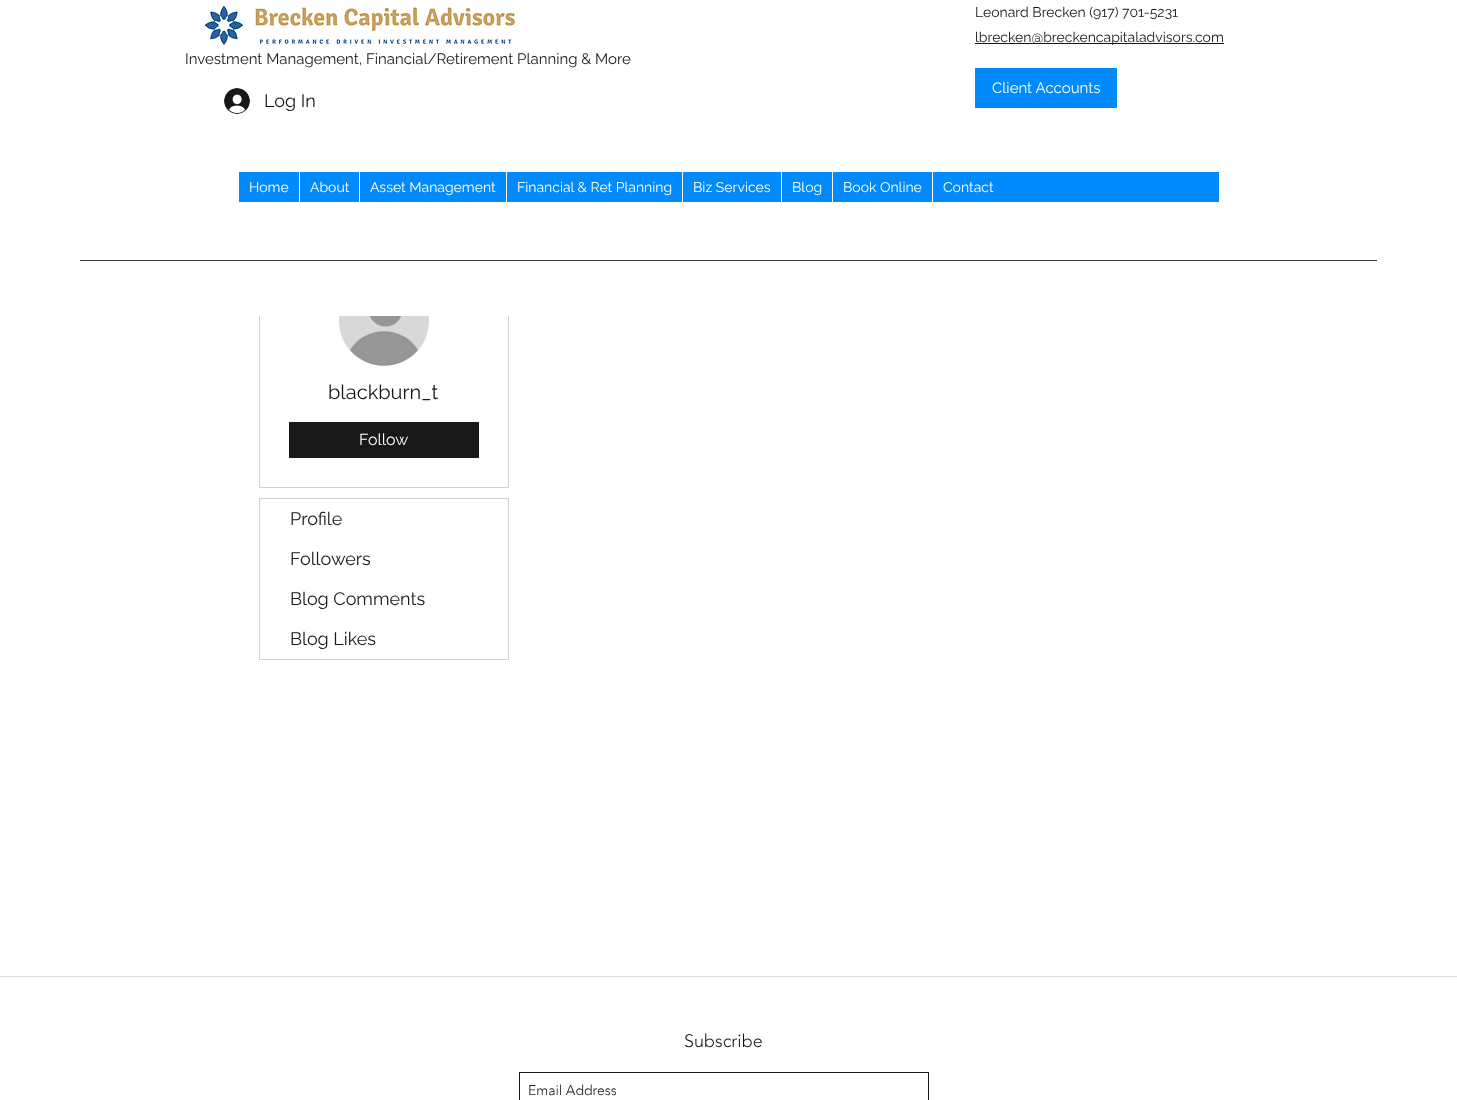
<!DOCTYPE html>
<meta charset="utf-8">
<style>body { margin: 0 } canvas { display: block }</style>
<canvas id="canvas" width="1457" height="1100"></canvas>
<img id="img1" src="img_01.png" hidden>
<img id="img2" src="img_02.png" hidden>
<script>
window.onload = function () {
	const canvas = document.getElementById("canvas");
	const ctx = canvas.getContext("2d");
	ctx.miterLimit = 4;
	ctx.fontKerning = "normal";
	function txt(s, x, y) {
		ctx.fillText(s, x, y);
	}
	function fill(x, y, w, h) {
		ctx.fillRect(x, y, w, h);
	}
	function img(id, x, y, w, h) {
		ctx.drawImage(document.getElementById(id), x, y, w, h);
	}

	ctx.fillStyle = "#FFFFFF";
	fill(0, 0, 1457, 1100);
	img("img1", 204, 6, 311, 39);
	img("img2", 224, 88, 26, 26);
	ctx.fillStyle = "#181818";
	fill(975, 43, 249, 1);
	ctx.fillStyle = "#008AFC";
	fill(975, 68, 142, 40);
	fill(239, 172, 980, 30);
	ctx.fillStyle = "#FFFFFF";
	fill(299, 172, 1, 30);
	fill(359, 172, 1, 30);
	fill(506, 172, 1, 30);
	fill(682, 172, 1, 30);
	fill(781, 172, 1, 30);
	fill(832, 172, 1, 30);
	fill(932, 172, 1, 30);
	ctx.strokeStyle = "#D1D1D1";
	ctx.strokeRect(259.5, 246.5, 249, 241);
	ctx.fillStyle = "#D8D8D8";
	ctx.beginPath();
	ctx.arc(384, 321, 45, 0, Math.PI * 2);
	ctx.fill();
	ctx.fillStyle = "#969696";
	ctx.beginPath();
	ctx.arc(385.5, 309.5, 17, 0, Math.PI * 2);
	ctx.fill();
	ctx.fillStyle = "#FFFFFF";
	fill(259, 246, 250, 70);
	ctx.fillStyle = "#3B3B3B";
	fill(80, 260, 1297, 1);
	ctx.fillStyle = "#969696";
	ctx.beginPath();
	ctx.moveTo(418, 350);
	ctx.bezierCurveTo(400, 371, 368, 371, 350, 350);
	ctx.bezierCurveTo(365, 325, 403, 325, 418, 350);
	ctx.closePath();
	ctx.fill();
	ctx.fillStyle = "#181818";
	fill(289, 422, 190, 36);
	ctx.strokeRect(259.5, 498.5, 249, 161);
	ctx.fillStyle = "#DCDCDC";
	fill(0, 976, 1457, 1);
	ctx.strokeStyle = "#181818";
	ctx.strokeRect(519.5, 1072.5, 409, 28);
	ctx.font = "15px Raleway";
	ctx.fillStyle = "#181818";
	txt("Investment Management, Financial/Retirement Planning & More", 185, 64);
	ctx.font = "18px Raleway";
	txt("Log In", 264, 107);
	ctx.font = "14px Raleway";
	txt("Leonard Brecken (917) 701-5231", 975, 17);
	txt("lbrecken@breckencapitaladvisors.com", 975, 42);
	ctx.font = "15px Raleway";
	ctx.fillStyle = "#FFFFFF";
	txt("Client Accounts", 992, 93);
	ctx.font = "14px Raleway";
	txt("Home", 249, 192);
	txt("About", 310, 192);
	txt("Asset Management", 370, 192);
	txt("Financial & Ret Planning", 517, 192);
	txt("Biz Services", 693, 192);
	txt("Blog", 792, 192);
	txt("Book Online", 843, 192);
	txt("Contact", 943, 192);
	ctx.font = "20px Raleway";
	ctx.fillStyle = "#181818";
	txt("blackburn_t", 328, 399);
	ctx.font = "16px Raleway";
	ctx.fillStyle = "#FFFFFF";
	txt("Follow", 359, 445);
	ctx.font = "18px Raleway";
	ctx.fillStyle = "#181818";
	txt("Profile", 290, 525);
	txt("Followers", 290, 565);
	txt("Blog Comments", 290, 605);
	txt("Blog Likes", 290, 645);
	ctx.font = "300 18px 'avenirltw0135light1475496'";
	txt("Subscribe", 684, 1047);
	ctx.font = "300 14px 'avenirltw0135light1475496'";
	txt("Email Address", 528, 1095);
};
</script>
